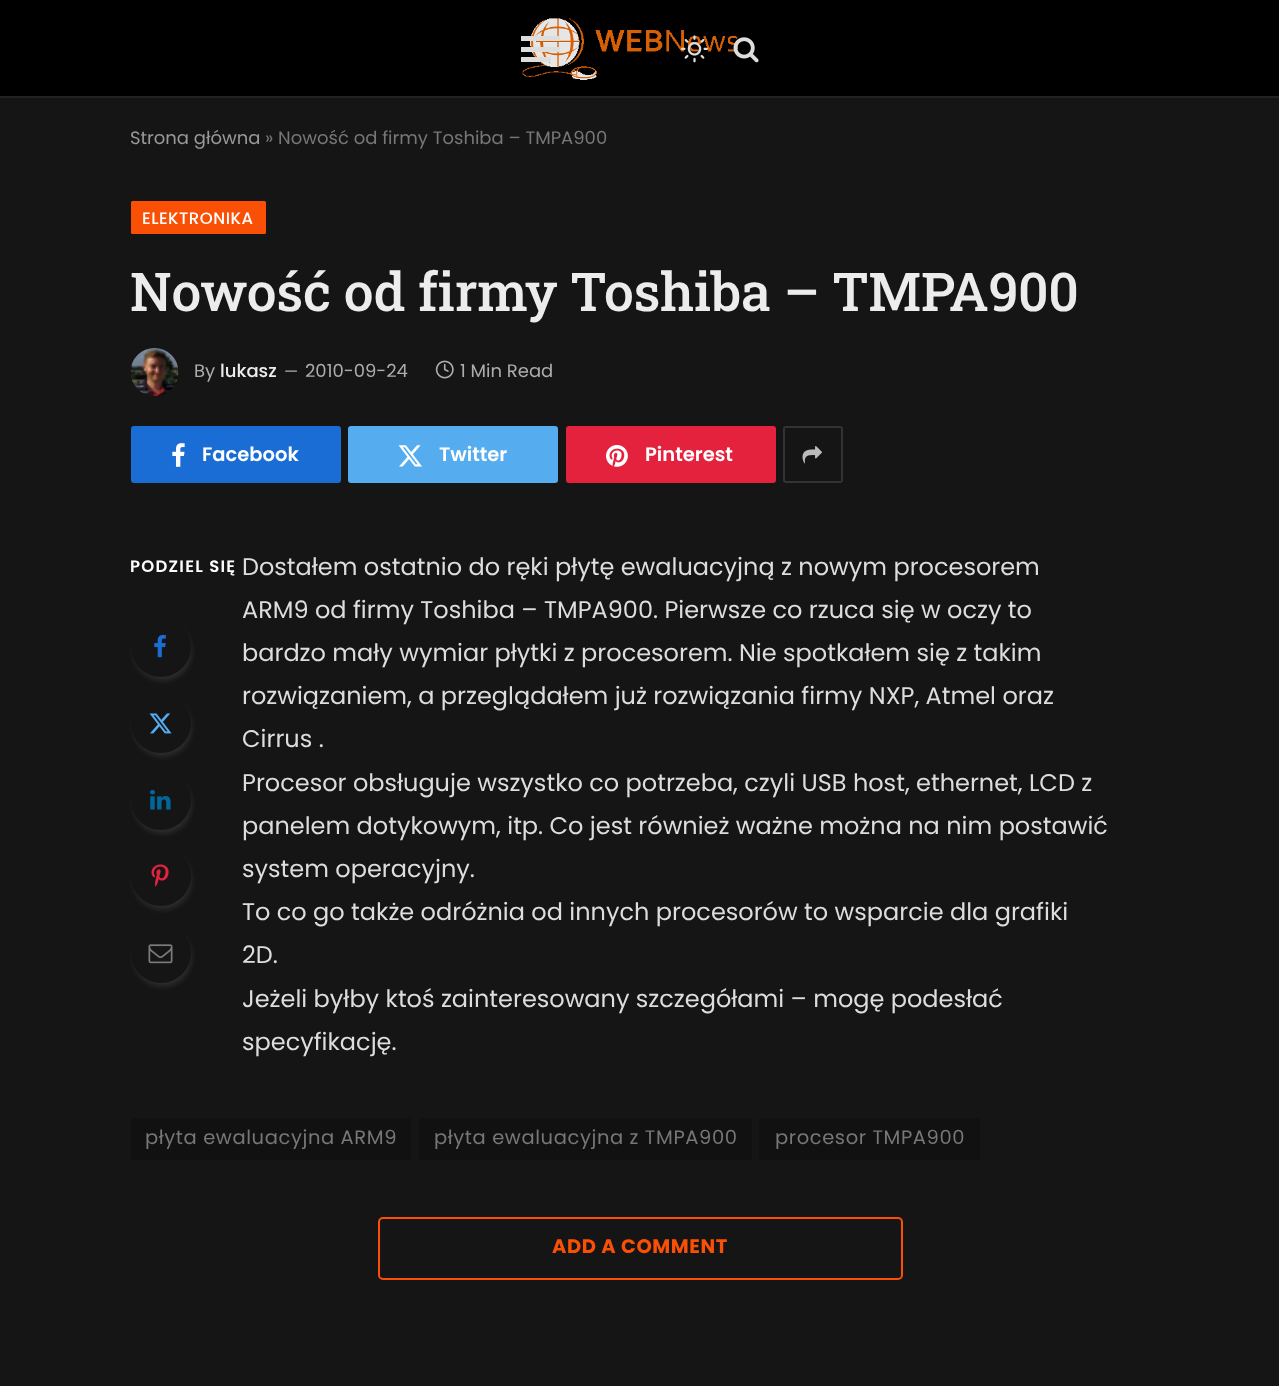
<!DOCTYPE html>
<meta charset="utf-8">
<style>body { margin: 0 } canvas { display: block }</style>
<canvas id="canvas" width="1279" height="1386"></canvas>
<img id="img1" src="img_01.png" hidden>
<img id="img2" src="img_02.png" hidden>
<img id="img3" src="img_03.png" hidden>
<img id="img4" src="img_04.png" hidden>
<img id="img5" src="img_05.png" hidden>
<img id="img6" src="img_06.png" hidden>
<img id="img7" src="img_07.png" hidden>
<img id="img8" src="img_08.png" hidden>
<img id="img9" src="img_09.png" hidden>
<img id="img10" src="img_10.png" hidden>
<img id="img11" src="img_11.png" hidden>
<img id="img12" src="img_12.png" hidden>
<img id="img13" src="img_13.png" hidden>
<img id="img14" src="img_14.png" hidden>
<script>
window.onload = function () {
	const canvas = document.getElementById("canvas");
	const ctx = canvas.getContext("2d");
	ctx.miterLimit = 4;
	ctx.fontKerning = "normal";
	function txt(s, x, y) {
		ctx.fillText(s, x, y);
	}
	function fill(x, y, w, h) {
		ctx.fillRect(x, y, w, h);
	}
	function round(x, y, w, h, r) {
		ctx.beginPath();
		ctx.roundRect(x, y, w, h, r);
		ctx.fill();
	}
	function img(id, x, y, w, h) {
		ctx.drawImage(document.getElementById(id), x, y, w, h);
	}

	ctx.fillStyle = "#151516";
	fill(0, 0, 1279, 1386);
	ctx.fillStyle = "#000000";
	fill(0, 0, 1279, 96);
	ctx.fillStyle = "#222222";
	fill(0, 96, 1279, 2);
	img("img1", 522, 18, 216, 62);
	ctx.fillStyle = "#DDDDDD";
	fill(521, 57, 30, 5);
	fill(521, 36, 39, 5);
	fill(521, 47, 39, 5);
	img("img2", 681, 35, 27, 28);
	img("img3", 733, 37, 26, 26);
	ctx.fillStyle = "#FA5005";
	round(131, 201, 135, 33, 1.5);
	img("img4", 130, 348, 49, 48);
	img("img5", 435, 360, 19, 19);
	ctx.fillStyle = "#1A6DD4";
	round(131, 426, 210, 57, 3);
	img("img6", 172, 443, 13, 24);
	ctx.fillStyle = "#55ACEF";
	round(348, 426, 210, 57, 3);
	img("img7", 398, 445, 24, 22);
	ctx.fillStyle = "#E4223E";
	round(566, 426, 210, 57, 3);
	img("img8", 606, 445, 22, 22);
	ctx.beginPath();
	ctx.roundRect(784, 427, 58, 55, 2);
	ctx.strokeStyle = "#333333";
	ctx.lineWidth = 2;
	ctx.stroke();
	img("img9", 802, 446, 20, 18);
	ctx.save();
	ctx.beginPath();
	ctx.moveTo(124, 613);
	ctx.lineTo(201, 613);
	ctx.lineTo(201, 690);
	ctx.lineTo(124, 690);
	ctx.closePath();
	ctx.moveTo(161, 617);
	ctx.bezierCurveTo(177.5, 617, 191, 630.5, 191, 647);
	ctx.bezierCurveTo(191, 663.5, 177.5, 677, 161, 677);
	ctx.bezierCurveTo(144.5, 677, 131, 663.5, 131, 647);
	ctx.bezierCurveTo(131, 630.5, 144.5, 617, 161, 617);
	ctx.closePath();
	ctx.clip("evenodd");
	ctx.fillStyle = "rgba(255, 255, 255, 0.12)";
	ctx.filter = "blur(3px)";
	ctx.beginPath();
	ctx.roundRect(134, 623, 57, 57, 28.5);
	ctx.fill();
	ctx.filter = "none";
	ctx.restore();
	img("img10", 154, 634, 12, 24);
	ctx.save();
	ctx.beginPath();
	ctx.moveTo(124, 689);
	ctx.lineTo(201, 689);
	ctx.lineTo(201, 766);
	ctx.lineTo(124, 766);
	ctx.closePath();
	ctx.moveTo(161, 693);
	ctx.bezierCurveTo(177.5, 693, 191, 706.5, 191, 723);
	ctx.bezierCurveTo(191, 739.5, 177.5, 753, 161, 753);
	ctx.bezierCurveTo(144.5, 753, 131, 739.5, 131, 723);
	ctx.bezierCurveTo(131, 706.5, 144.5, 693, 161, 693);
	ctx.closePath();
	ctx.clip("evenodd");
	ctx.fillStyle = "rgba(255, 255, 255, 0.12)";
	ctx.filter = "blur(3px)";
	ctx.beginPath();
	ctx.roundRect(134, 699, 57, 57, 28.5);
	ctx.fill();
	ctx.filter = "none";
	ctx.restore();
	img("img11", 149, 713, 23, 21);
	ctx.save();
	ctx.beginPath();
	ctx.moveTo(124, 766);
	ctx.lineTo(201, 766);
	ctx.lineTo(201, 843);
	ctx.lineTo(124, 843);
	ctx.closePath();
	ctx.moveTo(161, 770);
	ctx.bezierCurveTo(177.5, 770, 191, 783.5, 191, 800);
	ctx.bezierCurveTo(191, 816.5, 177.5, 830, 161, 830);
	ctx.bezierCurveTo(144.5, 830, 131, 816.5, 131, 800);
	ctx.bezierCurveTo(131, 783.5, 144.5, 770, 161, 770);
	ctx.closePath();
	ctx.clip("evenodd");
	ctx.fillStyle = "rgba(255, 255, 255, 0.12)";
	ctx.filter = "blur(3px)";
	ctx.beginPath();
	ctx.roundRect(134, 776, 57, 57, 28.5);
	ctx.fill();
	ctx.filter = "none";
	ctx.restore();
	img("img12", 150, 789, 21, 21);
	ctx.save();
	ctx.beginPath();
	ctx.moveTo(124, 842);
	ctx.lineTo(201, 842);
	ctx.lineTo(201, 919);
	ctx.lineTo(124, 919);
	ctx.closePath();
	ctx.moveTo(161, 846);
	ctx.bezierCurveTo(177.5, 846, 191, 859.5, 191, 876);
	ctx.bezierCurveTo(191, 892.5, 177.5, 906, 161, 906);
	ctx.bezierCurveTo(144.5, 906, 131, 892.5, 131, 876);
	ctx.bezierCurveTo(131, 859.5, 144.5, 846, 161, 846);
	ctx.closePath();
	ctx.clip("evenodd");
	ctx.fillStyle = "rgba(255, 255, 255, 0.12)";
	ctx.filter = "blur(3px)";
	ctx.beginPath();
	ctx.roundRect(134, 852, 57, 57, 28.5);
	ctx.fill();
	ctx.filter = "none";
	ctx.restore();
	img("img13", 151, 864, 18, 23);
	ctx.save();
	ctx.beginPath();
	ctx.moveTo(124, 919);
	ctx.lineTo(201, 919);
	ctx.lineTo(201, 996);
	ctx.lineTo(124, 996);
	ctx.closePath();
	ctx.moveTo(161, 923);
	ctx.bezierCurveTo(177.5, 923, 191, 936.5, 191, 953);
	ctx.bezierCurveTo(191, 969.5, 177.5, 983, 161, 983);
	ctx.bezierCurveTo(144.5, 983, 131, 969.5, 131, 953);
	ctx.bezierCurveTo(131, 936.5, 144.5, 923, 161, 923);
	ctx.closePath();
	ctx.clip("evenodd");
	ctx.fillStyle = "rgba(255, 255, 255, 0.12)";
	ctx.filter = "blur(3px)";
	ctx.beginPath();
	ctx.roundRect(134, 929, 57, 57, 28.5);
	ctx.fill();
	ctx.filter = "none";
	ctx.restore();
	img("img14", 148, 944, 25, 20);
	ctx.fillStyle = "#111111";
	round(131, 1118, 280, 42, 3);
	round(419, 1118, 333, 42, 3);
	round(759, 1118, 221, 42, 3);
	ctx.beginPath();
	ctx.roundRect(379, 1218, 523, 61, 4);
	ctx.strokeStyle = "#FA5005";
	ctx.stroke();
	ctx.font = "18px Poppins";
	ctx.fillStyle = "#999999";
	txt("Strona główna", 130, 144);
	ctx.fillStyle = "#777777";
	txt("» Nowość od firmy Toshiba – TMPA900", 265, 144);
	ctx.letterSpacing = "0.5px";
	ctx.font = "500 16.5px Poppins";
	ctx.fillStyle = "#FFFFFF";
	txt("ELEKTRONIKA", 142, 224);
	ctx.letterSpacing = "-0.25px";
	ctx.font = "500 53.4px Roboto Slab";
	ctx.fillStyle = "#ECECEC";
	txt("Nowość od firmy Toshiba – TMPA900", 130, 311);
	ctx.letterSpacing = "0px";
	ctx.font = "18px Poppins";
	ctx.fillStyle = "#ADADAD";
	txt("By", 194, 377);
	ctx.font = "500 18px Poppins";
	ctx.fillStyle = "#ECECEC";
	txt("lukasz", 220, 377);
	ctx.font = "16px Poppins";
	ctx.fillStyle = "#ADADAD";
	txt("—", 284, 377);
	ctx.font = "18px Poppins";
	txt("2010-09-24", 305, 377);
	txt("1 Min Read", 460, 377);
	ctx.font = "600 19.5px Poppins";
	ctx.fillStyle = "#FFFFFF";
	txt("Facebook", 202, 461);
	txt("Twitter", 439, 461);
	txt("Pinterest", 645, 461);
	ctx.letterSpacing = "1.25px";
	ctx.font = "600 16.5px Poppins";
	txt("PODZIEL SIĘ", 130, 572);
	ctx.letterSpacing = "0px";
	ctx.font = "24px Poppins";
	ctx.fillStyle = "#DDDDDD";
	txt("Dostałem ostatnio do ręki płytę ewaluacyjną z nowym procesorem", 242, 575);
	txt("ARM9 od firmy Toshiba – TMPA900. Pierwsze co rzuca się w oczy to", 242, 618);
	txt("bardzo mały wymiar płytki z procesorem. Nie spotkałem się z takim", 242, 661);
	txt("rozwiązaniem, a przeglądałem już rozwiązania firmy NXP, Atmel oraz", 242, 704);
	txt("Cirrus .", 242, 747);
	txt("Procesor obsługuje wszystko co potrzeba, czyli USB host, ethernet, LCD z", 242, 791);
	txt("panelem dotykowym, itp. Co jest również ważne można na nim postawić", 242, 834);
	txt("system operacyjny.", 242, 877);
	txt("To co go także odróżnia od innych procesorów to wsparcie dla grafiki", 242, 920);
	txt("2D.", 242, 963);
	txt("Jeżeli byłby ktoś zainteresowany szczegółami – mogę podesłać", 242, 1007);
	txt("specyfikację.", 242, 1050);
	ctx.letterSpacing = "0.6px";
	ctx.font = "19.5px Poppins";
	ctx.fillStyle = "#777777";
	txt("płyta ewaluacyjna ARM9", 145, 1144);
	txt("płyta ewaluacyjna z TMPA900", 434, 1144);
	txt("procesor TMPA900", 775, 1144);
	ctx.font = "bold 19.5px Poppins";
	ctx.fillStyle = "#FA5005";
	txt("ADD A COMMENT", 552, 1253);
};
</script>
